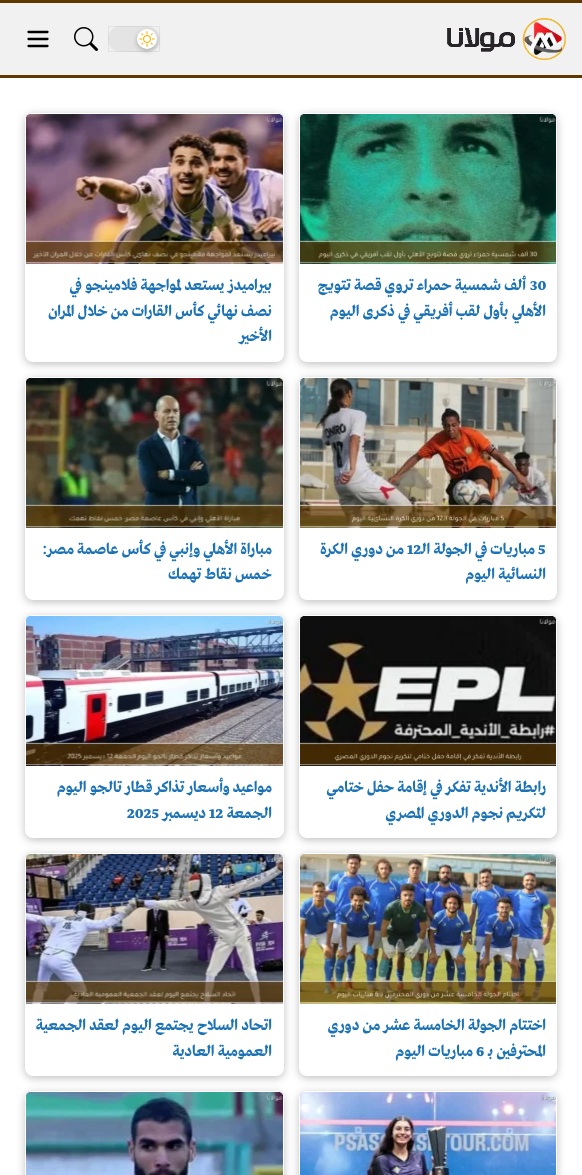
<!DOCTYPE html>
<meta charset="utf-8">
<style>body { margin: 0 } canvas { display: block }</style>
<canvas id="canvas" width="582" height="1175"></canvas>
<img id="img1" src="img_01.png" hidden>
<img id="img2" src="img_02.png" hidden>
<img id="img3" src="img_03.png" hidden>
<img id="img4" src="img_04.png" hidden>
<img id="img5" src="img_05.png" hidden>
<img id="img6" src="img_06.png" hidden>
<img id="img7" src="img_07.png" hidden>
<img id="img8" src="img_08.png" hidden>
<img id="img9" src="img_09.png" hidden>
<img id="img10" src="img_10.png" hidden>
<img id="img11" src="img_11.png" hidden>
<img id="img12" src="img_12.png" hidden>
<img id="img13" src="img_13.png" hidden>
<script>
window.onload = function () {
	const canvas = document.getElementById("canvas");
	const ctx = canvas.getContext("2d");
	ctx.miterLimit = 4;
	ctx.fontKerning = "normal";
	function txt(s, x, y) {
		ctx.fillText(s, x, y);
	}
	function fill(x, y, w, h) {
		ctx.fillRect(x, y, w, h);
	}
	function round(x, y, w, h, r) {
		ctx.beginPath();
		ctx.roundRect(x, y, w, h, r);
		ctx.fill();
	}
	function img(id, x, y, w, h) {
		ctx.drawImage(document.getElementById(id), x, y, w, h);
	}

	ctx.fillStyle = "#FFFFFF";
	fill(0, 0, 582, 1175);
	ctx.fillStyle = "#F1F1F1";
	fill(0, 3, 582, 72);
	ctx.fillStyle = "#5E3800";
	fill(0, 0, 582, 3);
	fill(0, 75, 582, 3);
	img("img1", 447, 18, 119, 42);
	ctx.fillStyle = "#E4E4E4";
	round(108, 26, 52, 26, 13);
	ctx.strokeStyle = "rgba(0, 0, 0, 0.06)";
	ctx.strokeRect(108.5, 26.5, 51, 25);
	ctx.fillStyle = "rgba(0, 0, 0, 0.25)";
	ctx.filter = "blur(2.5px)";
	ctx.beginPath();
	ctx.roundRect(137, 31, 20, 20, 10);
	ctx.fill();
	ctx.filter = "none";
	ctx.fillStyle = "#FFFFFF";
	ctx.beginPath();
	ctx.arc(147, 39, 10, 0, Math.PI * 2);
	ctx.fill();
	img("img2", 139, 31, 16, 16);
	img("img3", 74, 27, 24, 24);
	ctx.beginPath();
	ctx.moveTo(28.5, 32);
	ctx.lineTo(47.5, 32);
	ctx.moveTo(28.5, 39);
	ctx.lineTo(47.5, 39);
	ctx.moveTo(28.5, 46);
	ctx.lineTo(47.5, 46);
	ctx.strokeStyle = "#000000";
	ctx.lineWidth = 2.3;
	ctx.lineCap = "round";
	ctx.lineJoin = "round";
	ctx.stroke();
	ctx.fillStyle = "rgba(0, 0, 0, 0.25)";
	ctx.filter = "blur(4px)";
	ctx.beginPath();
	ctx.roundRect(299, 115, 258, 249, 8);
	ctx.fill();
	ctx.filter = "none";
	ctx.fillStyle = "#FFFFFF";
	round(299, 113, 258, 249, 8);
	img("img4", 300, 114, 256, 150);
	ctx.fillStyle = "rgba(0, 0, 0, 0.25)";
	ctx.filter = "blur(4px)";
	ctx.beginPath();
	ctx.roundRect(25, 115, 259, 249, 8);
	ctx.fill();
	ctx.filter = "none";
	ctx.fillStyle = "#FFFFFF";
	round(25, 113, 259, 249, 8);
	img("img5", 26, 114, 257, 150);
	ctx.fillStyle = "rgba(0, 0, 0, 0.25)";
	ctx.filter = "blur(4px)";
	ctx.beginPath();
	ctx.roundRect(299, 379, 258, 223, 8);
	ctx.fill();
	ctx.filter = "none";
	ctx.fillStyle = "#FFFFFF";
	round(299, 377, 258, 223, 8);
	img("img6", 300, 378, 256, 150);
	ctx.fillStyle = "rgba(0, 0, 0, 0.25)";
	ctx.filter = "blur(4px)";
	ctx.beginPath();
	ctx.roundRect(25, 379, 259, 223, 8);
	ctx.fill();
	ctx.filter = "none";
	ctx.fillStyle = "#FFFFFF";
	round(25, 377, 259, 223, 8);
	img("img7", 26, 378, 257, 150);
	ctx.fillStyle = "rgba(0, 0, 0, 0.25)";
	ctx.filter = "blur(4px)";
	ctx.beginPath();
	ctx.roundRect(299, 617, 258, 223, 8);
	ctx.fill();
	ctx.filter = "none";
	ctx.fillStyle = "#FFFFFF";
	round(299, 615, 258, 223, 8);
	img("img8", 300, 616, 256, 150);
	ctx.fillStyle = "rgba(0, 0, 0, 0.25)";
	ctx.filter = "blur(4px)";
	ctx.beginPath();
	ctx.roundRect(25, 617, 259, 223, 8);
	ctx.fill();
	ctx.filter = "none";
	ctx.fillStyle = "#FFFFFF";
	round(25, 615, 259, 223, 8);
	img("img9", 26, 616, 257, 150);
	ctx.fillStyle = "rgba(0, 0, 0, 0.25)";
	ctx.filter = "blur(4px)";
	ctx.beginPath();
	ctx.roundRect(299, 855, 258, 223, 8);
	ctx.fill();
	ctx.filter = "none";
	ctx.fillStyle = "#FFFFFF";
	round(299, 853, 258, 223, 8);
	img("img10", 300, 854, 256, 150);
	ctx.fillStyle = "rgba(0, 0, 0, 0.25)";
	ctx.filter = "blur(4px)";
	ctx.beginPath();
	ctx.roundRect(25, 855, 259, 223, 8);
	ctx.fill();
	ctx.filter = "none";
	ctx.fillStyle = "#FFFFFF";
	round(25, 853, 259, 223, 8);
	img("img11", 26, 854, 257, 150);
	ctx.fillStyle = "rgba(0, 0, 0, 0.25)";
	ctx.filter = "blur(4px)";
	ctx.beginPath();
	ctx.roundRect(299, 1093, 258, 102, 8);
	ctx.fill();
	ctx.filter = "none";
	ctx.fillStyle = "#FFFFFF";
	round(299, 1091, 258, 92, 8);
	img("img12", 300, 1092, 256, 83);
	ctx.fillStyle = "rgba(0, 0, 0, 0.25)";
	ctx.filter = "blur(4px)";
	ctx.beginPath();
	ctx.roundRect(25, 1093, 259, 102, 8);
	ctx.fill();
	ctx.filter = "none";
	ctx.fillStyle = "#FFFFFF";
	round(25, 1091, 259, 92, 8);
	img("img13", 26, 1092, 257, 83);
	ctx.font = "bold 16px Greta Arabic";
	ctx.fillStyle = "#1B72B5";
	txt("30", 530, 290);
	ctx.direction = "rtl";
	txt("ألف شمسية حمراء تروي قصة تتويج", 526, 290);
	txt("الأهلي بأول لقب أفريقي في ذكرى اليوم", 546, 316);
	txt("بيراميدز يستعد لمواجهة فلامينجو في", 272, 290);
	txt("نصف نهائي كأس القارات من خلال المران", 272, 316);
	txt("الأخير", 272, 341);
	ctx.direction = "ltr";
	txt("5", 538, 554);
	txt("12", 407, 554);
	ctx.direction = "rtl";
	txt("مباريات في الجولة الـ", 535, 554);
	txt("من دوري الكرة", 404, 554);
	txt("النسائية اليوم", 546, 579);
	txt("مباراة الأهلي وإنبي في كأس عاصمة مصر:", 272, 554);
	txt("خمس نقاط تهمك", 272, 579);
	txt("رابطة الأندية تفكر في إقامة حفل ختامي", 546, 792);
	txt("لتكريم نجوم الدوري المصري", 546, 818);
	txt("مواعيد وأسعار تذاكر قطار تالجو اليوم", 272, 792);
	txt("الجمعة", 272, 818);
	ctx.direction = "ltr";
	txt("12", 209, 818);
	ctx.direction = "rtl";
	txt("ديسمبر", 206, 818);
	ctx.direction = "ltr";
	txt("2025", 127, 818);
	ctx.direction = "rtl";
	txt("اختتام الجولة الخامسة عشر من دوري", 546, 1030);
	txt("المحترفين بـ", 546, 1056);
	ctx.direction = "ltr";
	txt("6", 476, 1056);
	ctx.direction = "rtl";
	txt("مباريات اليوم", 473, 1056);
	txt("اتحاد السلاح يجتمع اليوم لعقد الجمعية", 272, 1030);
	txt("العمومية العادية", 272, 1056);
};
</script>
